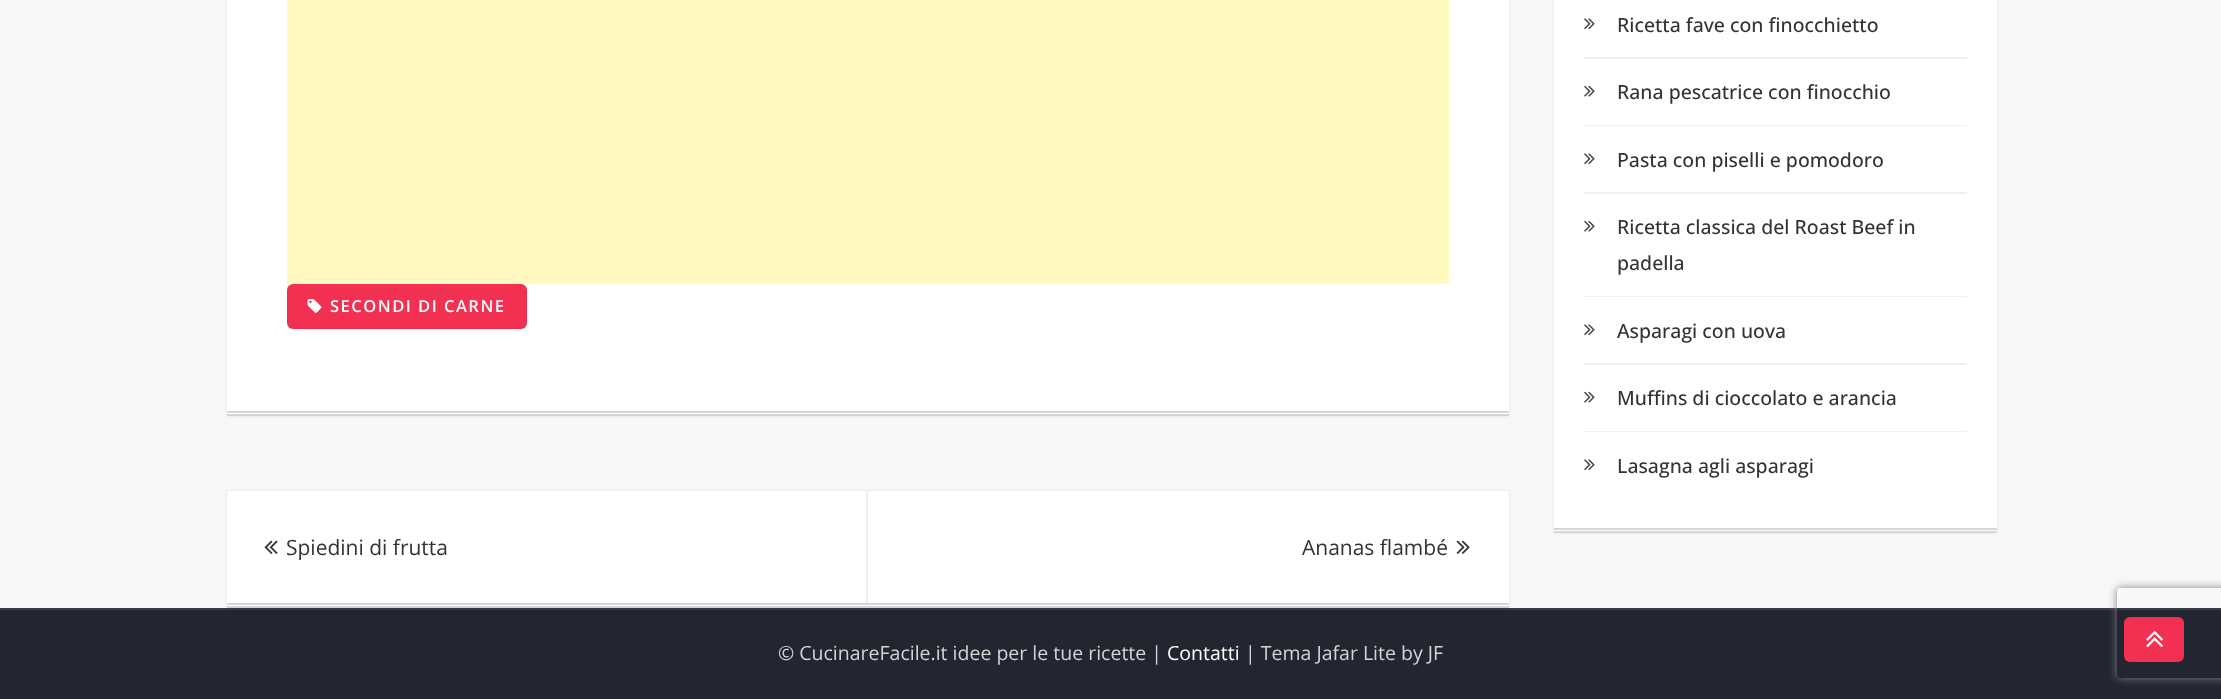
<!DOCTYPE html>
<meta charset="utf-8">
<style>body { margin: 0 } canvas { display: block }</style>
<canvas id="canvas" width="2221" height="699"></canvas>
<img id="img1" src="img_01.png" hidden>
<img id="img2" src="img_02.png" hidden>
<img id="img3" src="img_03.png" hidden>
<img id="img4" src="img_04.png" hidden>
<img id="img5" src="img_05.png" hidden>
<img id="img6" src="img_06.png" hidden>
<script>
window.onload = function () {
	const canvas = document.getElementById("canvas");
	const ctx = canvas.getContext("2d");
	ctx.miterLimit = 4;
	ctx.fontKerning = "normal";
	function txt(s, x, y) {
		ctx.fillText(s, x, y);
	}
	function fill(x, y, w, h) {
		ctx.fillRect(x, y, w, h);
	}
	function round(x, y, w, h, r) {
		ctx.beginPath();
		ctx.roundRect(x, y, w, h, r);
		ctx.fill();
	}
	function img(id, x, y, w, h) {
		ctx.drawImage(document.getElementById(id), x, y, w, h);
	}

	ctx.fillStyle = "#F8F8F8";
	fill(0, 0, 2221, 699);
	ctx.save();
	ctx.beginPath();
	ctx.moveTo(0, 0);
	ctx.lineTo(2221, 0);
	ctx.lineTo(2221, 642);
	ctx.lineTo(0, 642);
	ctx.closePath();
	ctx.moveTo(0, -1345);
	ctx.lineTo(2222, -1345);
	ctx.lineTo(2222, 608);
	ctx.lineTo(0, 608);
	ctx.closePath();
	ctx.clip("evenodd");
	ctx.fillStyle = "#AAAAAA";
	ctx.filter = "blur(11px)";
	ctx.beginPath();
	ctx.rect(0, -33, 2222, 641);
	ctx.fill();
	ctx.filter = "none";
	ctx.restore();
	ctx.fillStyle = "rgba(0, 0, 0, 0.1)";
	ctx.filter = "blur(1.5px)";
	ctx.beginPath();
	ctx.rect(227, -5, 1282, 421);
	ctx.fill();
	ctx.filter = "none";
	ctx.fillStyle = "#FFFFFF";
	fill(227, 0, 1282, 414);
	ctx.fillStyle = "#D6D6D6";
	fill(227, 411, 1282, 2);
	fill(227, 414, 1282, 2);
	ctx.fillStyle = "#FFF9C0";
	fill(287, 0, 1162, 284);
	ctx.fillStyle = "#F23051";
	round(287, 284, 240, 45, 6);
	img("img1", 307, 299, 15, 14);
	ctx.fillStyle = "#222631";
	fill(0, 610, 2221, 89);
	ctx.fillStyle = "#383C46";
	fill(0, 608, 2221, 2);
	ctx.fillStyle = "rgba(0, 0, 0, 0.1)";
	ctx.filter = "blur(1.5px)";
	ctx.beginPath();
	ctx.rect(227, 491, 1282, 117);
	ctx.fill();
	ctx.filter = "none";
	ctx.fillStyle = "#FFFFFF";
	fill(227, 491, 1282, 115);
	ctx.fillStyle = "#D6D6D6";
	fill(227, 603, 1282, 2);
	fill(227, 606, 1282, 2);
	ctx.fillStyle = "#EEEEEE";
	fill(866, 491, 2, 112);
	img("img2", 264, 540, 14, 14);
	img("img3", 1456, 540, 14, 14);
	ctx.fillStyle = "rgba(0, 0, 0, 0.1)";
	ctx.filter = "blur(1.5px)";
	ctx.beginPath();
	ctx.rect(1554, -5, 443, 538);
	ctx.fill();
	ctx.filter = "none";
	ctx.fillStyle = "#FFFFFF";
	fill(1554, 0, 443, 531);
	ctx.fillStyle = "#D6D6D6";
	fill(1554, 528, 443, 2);
	fill(1554, 531, 443, 2);
	ctx.fillStyle = "#EFEFEF";
	fill(1584, 57, 383, 2);
	img("img4", 1584, 18, 11, 12);
	fill(1584, 125, 383, 1);
	img("img5", 1584, 85, 11, 12);
	fill(1584, 192, 383, 2);
	img("img4", 1584, 153, 11, 12);
	fill(1584, 296, 383, 1);
	img("img5", 1584, 220, 11, 12);
	fill(1584, 363, 383, 2);
	img("img4", 1584, 324, 11, 12);
	fill(1584, 431, 383, 1);
	img("img5", 1584, 391, 11, 12);
	img("img4", 1584, 459, 11, 12);
	ctx.save();
	ctx.beginPath();
	ctx.moveTo(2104, 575);
	ctx.lineTo(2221, 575);
	ctx.lineTo(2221, 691);
	ctx.lineTo(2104, 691);
	ctx.closePath();
	ctx.moveTo(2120, 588);
	ctx.lineTo(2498, 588);
	ctx.bezierCurveTo(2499.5, 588, 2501, 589.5, 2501, 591);
	ctx.lineTo(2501, 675);
	ctx.bezierCurveTo(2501, 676.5, 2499.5, 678, 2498, 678);
	ctx.lineTo(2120, 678);
	ctx.bezierCurveTo(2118.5, 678, 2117, 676.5, 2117, 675);
	ctx.lineTo(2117, 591);
	ctx.bezierCurveTo(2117, 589.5, 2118.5, 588, 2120, 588);
	ctx.closePath();
	ctx.clip("evenodd");
	ctx.fillStyle = "#808080";
	ctx.filter = "blur(4px)";
	ctx.beginPath();
	ctx.roundRect(2117, 588, 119, 90, 3);
	ctx.fill();
	ctx.filter = "none";
	ctx.restore();
	ctx.fillStyle = "#F23051";
	round(2124, 617, 60, 45, 6);
	img("img6", 2146, 631, 17, 17);
	ctx.letterSpacing = "1.5px";
	ctx.font = "600 16.5px Open Sans";
	ctx.fillStyle = "#FFFFFF";
	txt("SECONDI DI CARNE", 330, 312);
	ctx.letterSpacing = "0px";
	ctx.font = "21px Open Sans";
	ctx.fillStyle = "#333333";
	txt("Spiedini di frutta", 286, 555);
	txt("Ananas flambé", 1302, 555);
	ctx.font = "500 19.5px Open Sans";
	txt("Ricetta fave con finocchietto", 1617, 32);
	txt("Rana pescatrice con finocchio", 1617, 99);
	txt("Pasta con piselli e pomodoro", 1617, 167);
	txt("Ricetta classica del Roast Beef in", 1617, 234);
	txt("padella", 1617, 270);
	txt("Asparagi con uova", 1617, 338);
	txt("Muffins di cioccolato e arancia", 1617, 405);
	txt("Lasagna agli asparagi", 1617, 473);
	ctx.font = "19.5px Open Sans";
	ctx.fillStyle = "#D3D4D6";
	txt("© CucinareFacile.it idee per le tue ricette |", 778, 660);
	ctx.fillStyle = "#FFFFFF";
	txt("Contatti", 1167, 660);
	ctx.fillStyle = "#D3D4D6";
	txt("| Tema Jafar Lite by JF", 1245, 660);
};
</script>
